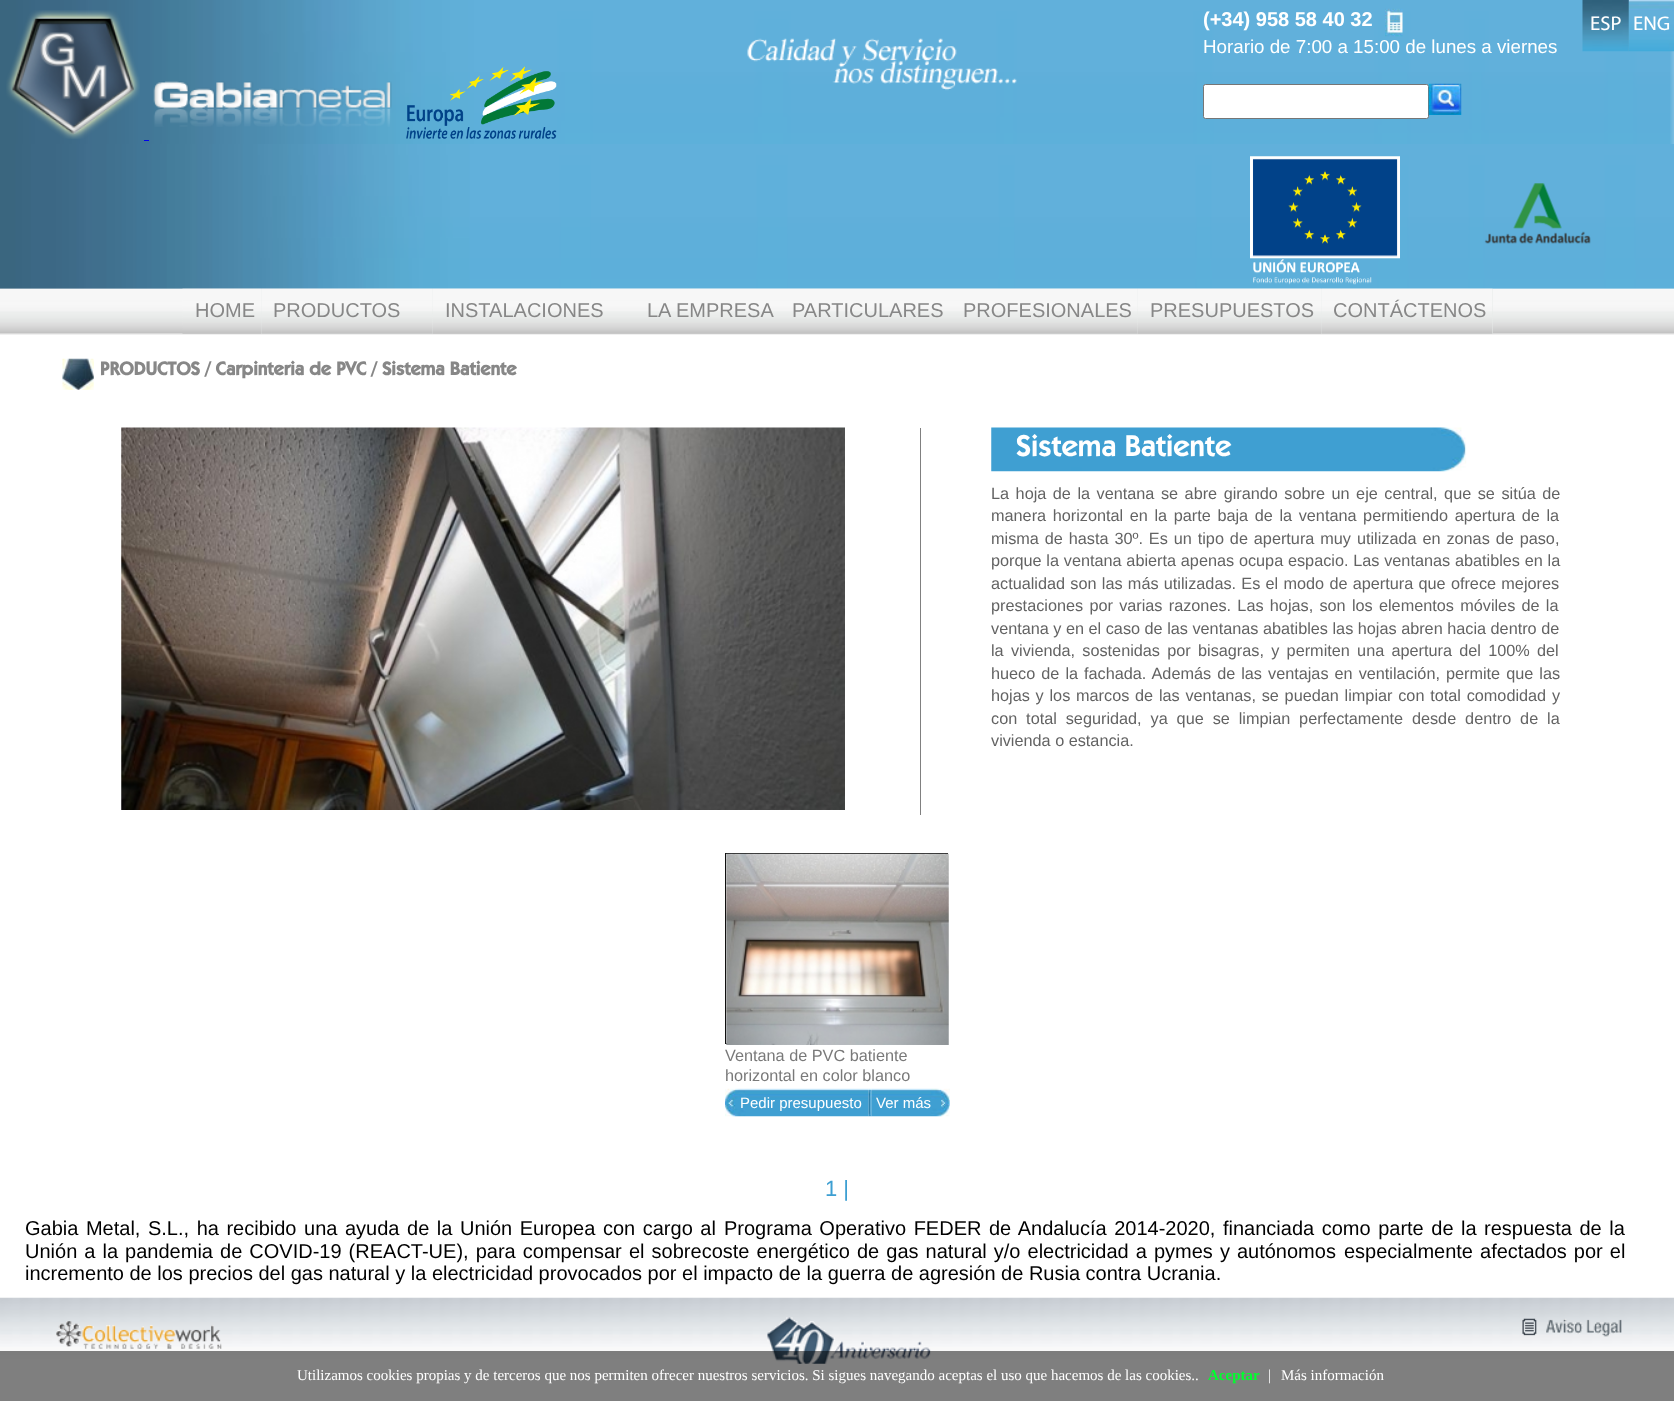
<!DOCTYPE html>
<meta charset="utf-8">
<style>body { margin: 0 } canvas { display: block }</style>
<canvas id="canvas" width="1674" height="1401"></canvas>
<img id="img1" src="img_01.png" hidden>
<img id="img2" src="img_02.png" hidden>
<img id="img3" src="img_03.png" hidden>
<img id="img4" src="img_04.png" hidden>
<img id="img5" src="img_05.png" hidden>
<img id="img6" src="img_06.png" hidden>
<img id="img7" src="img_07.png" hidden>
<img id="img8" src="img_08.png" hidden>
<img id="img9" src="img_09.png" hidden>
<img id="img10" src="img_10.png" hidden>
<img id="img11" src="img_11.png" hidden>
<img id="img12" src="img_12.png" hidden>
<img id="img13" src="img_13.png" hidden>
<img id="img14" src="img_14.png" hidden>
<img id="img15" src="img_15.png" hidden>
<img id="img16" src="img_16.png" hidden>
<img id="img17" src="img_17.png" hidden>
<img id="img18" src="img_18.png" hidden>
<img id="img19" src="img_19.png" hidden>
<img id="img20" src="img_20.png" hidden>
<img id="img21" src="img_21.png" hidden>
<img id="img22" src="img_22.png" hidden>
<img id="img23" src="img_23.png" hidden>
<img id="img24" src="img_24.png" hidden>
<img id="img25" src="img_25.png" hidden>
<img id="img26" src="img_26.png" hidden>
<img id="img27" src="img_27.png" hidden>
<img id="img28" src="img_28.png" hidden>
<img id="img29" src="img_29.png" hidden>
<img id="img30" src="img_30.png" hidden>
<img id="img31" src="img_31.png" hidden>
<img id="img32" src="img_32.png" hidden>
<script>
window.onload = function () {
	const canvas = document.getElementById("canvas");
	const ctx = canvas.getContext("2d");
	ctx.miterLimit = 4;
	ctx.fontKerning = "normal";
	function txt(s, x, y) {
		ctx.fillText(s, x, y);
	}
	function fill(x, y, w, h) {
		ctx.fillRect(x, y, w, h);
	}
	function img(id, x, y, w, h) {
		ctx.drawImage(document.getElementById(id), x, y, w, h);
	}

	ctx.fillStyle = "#FFFFFF";
	fill(0, 0, 1674, 1401);
	img("img1", 0, 0, 1674, 144);
	img("img2", 6, 10, 134, 129);
	img("img3", 153, 81, 239, 46);
	img("img4", 406, 66, 151, 73);
	ctx.fillStyle = "#0000EE";
	fill(144, 140, 5, 1);
	img("img5", 1385, 8, 18, 29);
	img("img6", 1582, 0, 47, 52);
	img("img7", 1628, 0, 46, 52);
	ctx.fillStyle = "#FFFFFF";
	ctx.beginPath();
	ctx.roundRect(1203.5, 84.5, 225, 34, 2);
	ctx.fill();
	ctx.strokeStyle = "#767676";
	ctx.stroke();
	img("img8", 1428, 83, 34, 32);
	img("img9", 747, 38, 270, 53);
	img("img10", 0, 144, 1674, 145);
	img("img11", 1250, 156, 150, 129);
	img("img12", 1484, 183, 107, 61);
	img("img13", 0, 288, 1674, 47);
	img("img14", 182, 288, 80, 46);
	ctx.fillStyle = "#E7EAE9";
	fill(261, 289, 172, 45);
	img("img15", 261, 288, 172, 46);
	img("img16", 432, 288, 203, 46);
	img("img17", 635, 288, 145, 46);
	img("img18", 780, 288, 170, 46);
	fill(950, 289, 188, 45);
	img("img19", 950, 288, 188, 46);
	img("img20", 1137, 288, 184, 46);
	fill(1321, 289, 172, 45);
	img("img21", 1321, 288, 172, 46);
	img("img22", 62, 358, 32, 32);
	img("img23", 121, 427, 724, 383);
	ctx.fillStyle = "#808080";
	fill(920, 428, 1, 387);
	img("img24", 991, 427, 476, 45);
	ctx.strokeStyle = "#0F0F0F";
	ctx.strokeRect(725.5, 853.5, 222, 190);
	img("img25", 726, 853, 223, 192);
	img("img26", 725, 1088, 144, 29);
	img("img27", 868, 1088, 4, 29);
	img("img28", 871, 1088, 79, 29);
	img("img29", 0, 1297, 1674, 74);
	img("img30", 56, 1321, 166, 28);
	img("img31", 767, 1317, 164, 47);
	img("img32", 1522, 1318, 100, 19);
	ctx.fillStyle = "rgba(0, 0, 0, 0.5)";
	fill(0, 1351, 1674, 50);
	ctx.font = "bold 20px Liberation Sans";
	ctx.fillStyle = "#FFFFFF";
	txt("(+34) 958 58 40 32", 1203, 26);
	ctx.font = "18.75px Liberation Sans";
	txt("Horario de 7:00 a 15:00 de lunes a viernes", 1203, 53);
	ctx.font = "20px Myriad";
	txt("ESP", 1590, 30);
	txt("ENG", 1633, 30);
	ctx.font = "20px Liberation Sans";
	ctx.fillStyle = "#878787";
	txt("HOME", 195, 317);
	txt("PRODUCTOS", 273, 317);
	txt("INSTALACIONES", 445, 317);
	txt("LA EMPRESA", 647, 317);
	txt("PARTICULARES", 792, 317);
	txt("PROFESIONALES", 963, 317);
	txt("PRESUPUESTOS", 1150, 317);
	txt("CONTÁCTENOS", 1333, 317);
	ctx.font = "bold 18.75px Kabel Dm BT";
	txt("PRODUCTOS / Carpinteria de PVC / Sistema Batiente", 100, 375);
	ctx.font = "30px Kabel Dm BT";
	ctx.fillStyle = "#FFFFFF";
	txt("Sistema Batiente", 1016, 456);
	ctx.wordSpacing = "2px";
	ctx.font = "16.25px Liberation Sans";
	ctx.fillStyle = "#636363";
	txt("La hoja de la ventana se abre girando sobre un eje central, que se sitúa de", 991, 499);
	ctx.wordSpacing = "2.1px";
	txt("manera horizontal en la parte baja de la ventana permitiendo apertura de la", 991, 521);
	ctx.wordSpacing = "1.4px";
	txt("misma de hasta 30º. Es un tipo de apertura muy utilizada en zonas de paso,", 991, 544);
	ctx.wordSpacing = "0.25px";
	txt("porque la ventana abierta apenas ocupa espacio. Las ventanas abatibles en la", 991, 566);
	ctx.wordSpacing = "0.75px";
	txt("actualidad son las más utilizadas. Es el modo de apertura que ofrece mejores", 991, 589);
	ctx.wordSpacing = "1.75px";
	txt("prestaciones por varias razones. Las hojas, son los elementos móviles de la", 991, 611);
	ctx.wordSpacing = "0px";
	txt("ventana y en el caso de las ventanas abatibles las hojas abren hacia dentro de", 991, 634);
	ctx.wordSpacing = "2.75px";
	txt("la vivienda, sostenidas por bisagras, y permiten una apertura del 100% del", 991, 656);
	ctx.wordSpacing = "1.5px";
	txt("hueco de la fachada. Además de las ventajas en ventilación, permite que las", 991, 679);
	ctx.wordSpacing = "1.25px";
	txt("hojas y los marcos de las ventanas, se puedan limpiar con total comodidad y", 991, 701);
	ctx.wordSpacing = "4.4px";
	txt("con total seguridad, ya que se limpian perfectamente desde dentro de la", 991, 724);
	ctx.wordSpacing = "0px";
	txt("vivienda o estancia.", 991, 746);
	ctx.fillStyle = "#797979";
	txt("Ventana de PVC batiente", 725, 1061);
	txt("horizontal en color blanco", 725, 1081);
	ctx.font = "15px Liberation Sans";
	ctx.fillStyle = "#FFFFFF";
	txt("Pedir presupuesto", 740, 1108);
	txt("Ver más", 876, 1108);
	ctx.font = "22px Liberation Sans";
	ctx.fillStyle = "#3D9FD2";
	txt("1 |", 825, 1196);
	ctx.wordSpacing = "2px";
	ctx.font = "20px Liberation Sans";
	ctx.fillStyle = "#000000";
	txt("Gabia Metal, S.L., ha recibido una ayuda de la Unión Europea con cargo al", 25, 1235);
	txt("Programa Operativo FEDER de Andalucía 2014-2020, financiada como parte de la", 724, 1235);
	txt("respuesta de la", 1484, 1235);
	ctx.wordSpacing = "1.5px";
	txt("Unión a la pandemia de COVID-19 (REACT-UE), para compensar", 25, 1258);
	txt("el sobrecoste energético de gas natural y/o electricidad a pymes y autónomos", 629, 1258);
	txt("especialmente afectados por el", 1344, 1258);
	ctx.wordSpacing = "0px";
	txt("incremento de los precios del gas natural y la electricidad provocados por el impacto de la guerra de agresión de Rusia contra Ucrania.", 25, 1280);
	ctx.font = "15px Liberation Serif";
	ctx.fillStyle = "#FFFFFF";
	txt("Utilizamos cookies propias y de terceros que nos permiten ofrecer nuestros servicios. Si sigues navegando aceptas el uso que hacemos de las cookies..", 297, 1380);
	ctx.font = "bold 15px Liberation Serif";
	ctx.fillStyle = "#00FF2E";
	txt("Aceptar", 1208, 1380);
	ctx.font = "15px Liberation Serif";
	ctx.fillStyle = "#FFFFFF";
	txt("|", 1268, 1380);
	txt("Más información", 1281, 1380);
};
</script>
